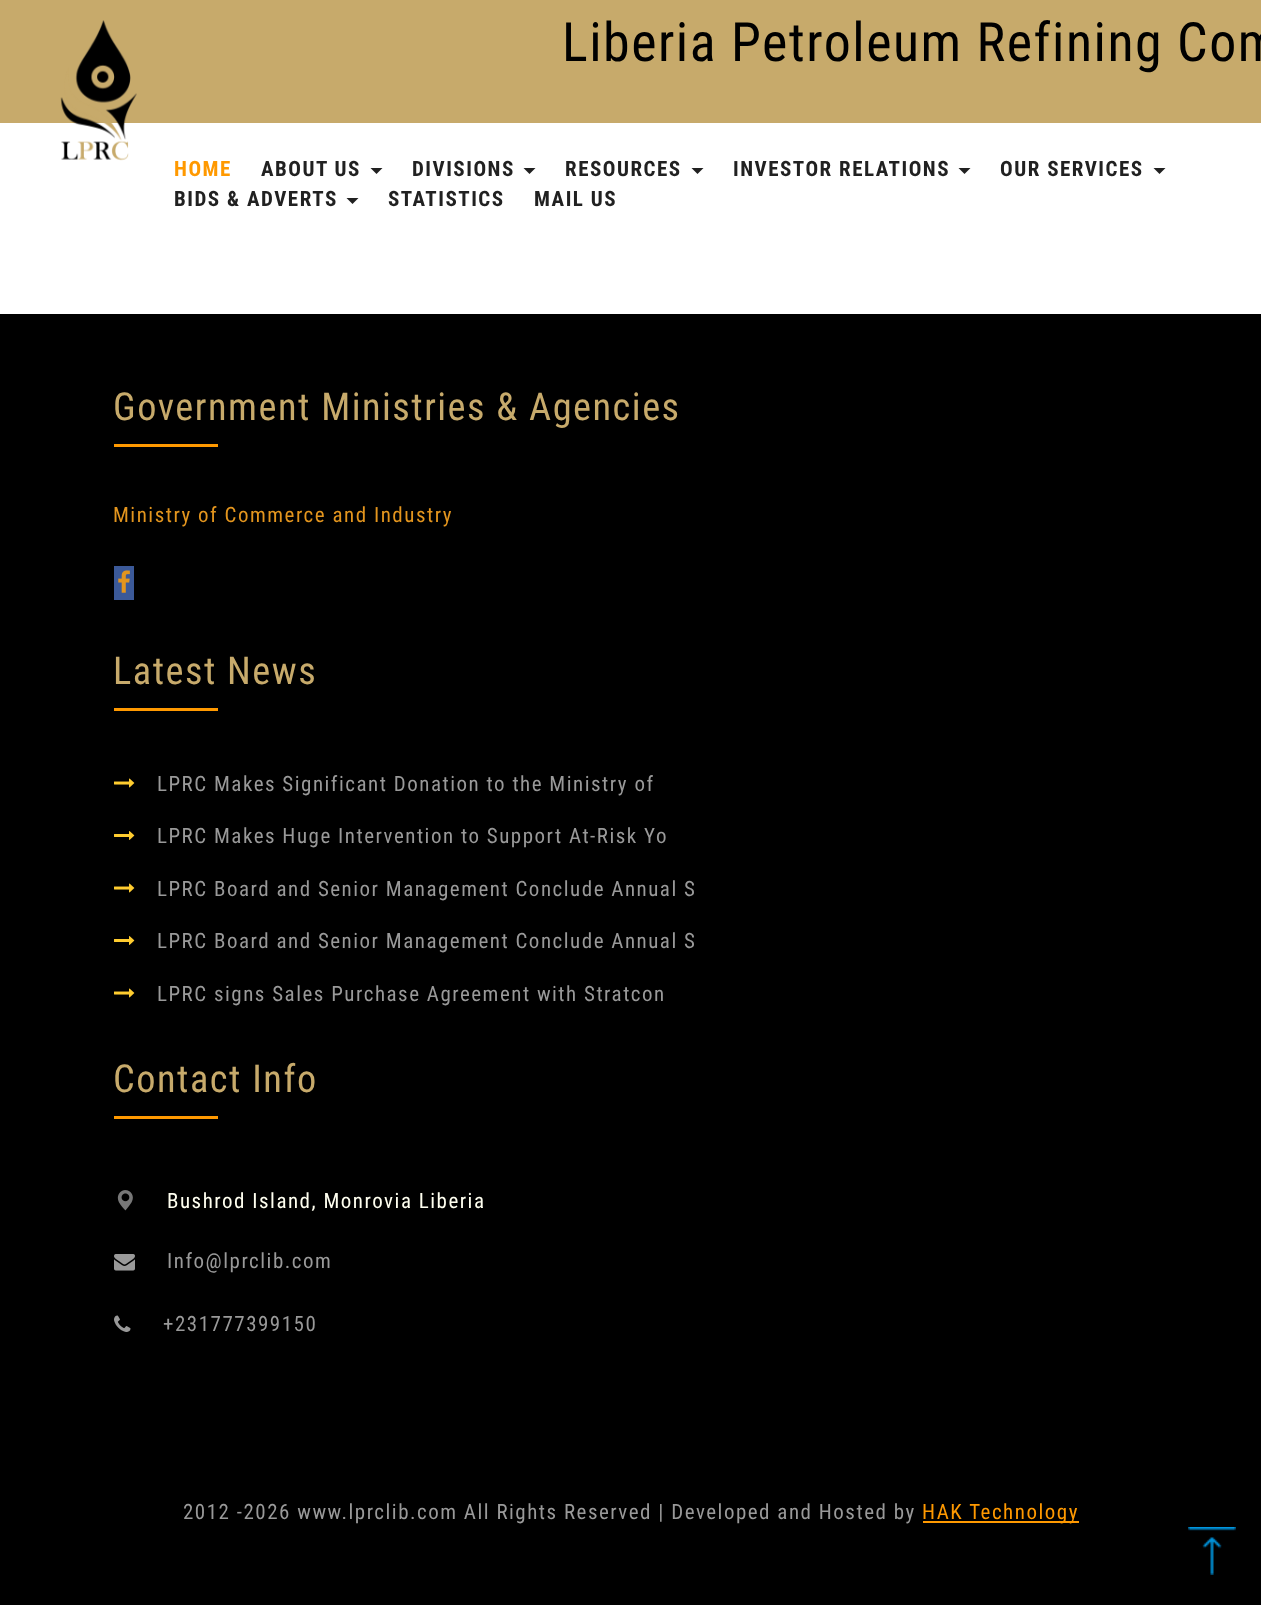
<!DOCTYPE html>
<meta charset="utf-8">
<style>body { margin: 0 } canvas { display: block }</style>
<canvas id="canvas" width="1261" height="1605"></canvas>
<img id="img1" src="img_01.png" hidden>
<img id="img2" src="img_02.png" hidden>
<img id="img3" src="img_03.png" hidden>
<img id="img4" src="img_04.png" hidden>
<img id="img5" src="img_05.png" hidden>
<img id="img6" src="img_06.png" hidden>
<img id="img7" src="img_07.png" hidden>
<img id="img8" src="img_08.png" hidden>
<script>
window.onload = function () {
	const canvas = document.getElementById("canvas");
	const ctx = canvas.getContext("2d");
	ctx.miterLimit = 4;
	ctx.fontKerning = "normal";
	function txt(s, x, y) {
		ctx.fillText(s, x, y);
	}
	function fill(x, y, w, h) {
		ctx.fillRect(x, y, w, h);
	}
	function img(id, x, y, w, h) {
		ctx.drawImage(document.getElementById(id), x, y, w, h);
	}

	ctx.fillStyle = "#FFFFFF";
	fill(0, 0, 1261, 1605);
	ctx.fillStyle = "#C7AA6B";
	fill(0, 0, 1261, 123);
	img("img1", 60, 20, 77, 141);
	ctx.fillStyle = "#212121";
	ctx.beginPath();
	ctx.moveTo(370.5, 168);
	ctx.lineTo(382.5, 168);
	ctx.lineTo(376.5, 174);
	ctx.closePath();
	ctx.fill();
	ctx.beginPath();
	ctx.moveTo(523.5, 168);
	ctx.lineTo(535.5, 168);
	ctx.lineTo(529.5, 174);
	ctx.closePath();
	ctx.fill();
	ctx.beginPath();
	ctx.moveTo(691.5, 168);
	ctx.lineTo(703.5, 168);
	ctx.lineTo(697.5, 174);
	ctx.closePath();
	ctx.fill();
	ctx.beginPath();
	ctx.moveTo(958.5, 168);
	ctx.lineTo(970.5, 168);
	ctx.lineTo(964.5, 174);
	ctx.closePath();
	ctx.fill();
	ctx.beginPath();
	ctx.moveTo(1153.5, 168);
	ctx.lineTo(1165.5, 168);
	ctx.lineTo(1159.5, 174);
	ctx.closePath();
	ctx.fill();
	ctx.beginPath();
	ctx.moveTo(346.5, 198);
	ctx.lineTo(358.5, 198);
	ctx.lineTo(352.5, 204);
	ctx.closePath();
	ctx.fill();
	ctx.fillStyle = "#000000";
	fill(0, 314, 1261, 1291);
	ctx.fillStyle = "#FF9900";
	fill(114, 444, 104, 3);
	ctx.fillStyle = "#3B5998";
	fill(114, 566, 20, 34);
	img("img2", 118, 570, 12, 23);
	ctx.fillStyle = "#FF9900";
	fill(114, 708, 104, 3);
	img("img3", 114, 778, 21, 10);
	img("img4", 114, 831, 21, 9);
	img("img3", 114, 883, 21, 10);
	img("img4", 114, 936, 21, 9);
	img("img3", 114, 988, 21, 10);
	fill(114, 1116, 104, 3);
	img("img5", 117, 1190, 16, 21);
	img("img6", 114, 1254, 21, 17);
	img("img7", 114, 1315, 17, 17);
	fill(923, 1521, 156, 2);
	img("img8", 1188, 1527, 48, 48);
	ctx.letterSpacing = "1.5px";
	ctx.font = "54px Roboto Condensed";
	ctx.fillStyle = "#000000";
	txt("Liberia Petroleum Refining Com", 562, 61);
	ctx.font = "bold 21px Roboto Condensed";
	ctx.fillStyle = "#FF9900";
	txt("HOME", 174, 176);
	ctx.fillStyle = "#212121";
	txt("ABOUT US", 261, 176);
	txt("DIVISIONS", 412, 176);
	txt("RESOURCES", 565, 176);
	txt("INVESTOR RELATIONS", 733, 176);
	txt("OUR SERVICES", 1000, 176);
	txt("BIDS & ADVERTS", 174, 206);
	txt("STATISTICS", 388, 206);
	txt("MAIL US", 534, 206);
	ctx.font = "38.4px Roboto Condensed";
	ctx.fillStyle = "#C7AA6B";
	txt("Government Ministries & Agencies", 113, 420);
	ctx.font = "21px Roboto Condensed";
	ctx.fillStyle = "#E3951E";
	txt("Ministry of Commerce and Industry", 113, 522);
	ctx.font = "38.4px Roboto Condensed";
	ctx.fillStyle = "#C7AA6B";
	txt("Latest News", 113, 684);
	ctx.font = "21px Roboto Condensed";
	ctx.fillStyle = "#999999";
	txt("LPRC Makes Significant Donation to the Ministry of", 157, 791);
	txt("LPRC Makes Huge Intervention to Support At-Risk Yo", 157, 843);
	txt("LPRC Board and Senior Management Conclude Annual S", 157, 896);
	txt("LPRC Board and Senior Management Conclude Annual S", 157, 948);
	txt("LPRC signs Sales Purchase Agreement with Stratcon", 157, 1001);
	ctx.font = "38.4px Roboto Condensed";
	ctx.fillStyle = "#C7AA6B";
	txt("Contact Info", 113, 1092);
	ctx.font = "21px Roboto Condensed";
	ctx.fillStyle = "#FFFFF0";
	txt("Bushrod Island, Monrovia Liberia", 167, 1208);
	ctx.fillStyle = "#999999";
	txt("Info@lprclib.com", 167, 1268);
	txt("+231777399150", 163, 1331);
	txt("2012 -2026 www.lprclib.com All Rights Reserved | Developed and Hosted by", 183, 1519);
	ctx.fillStyle = "#FF9900";
	txt("HAK Technology", 922, 1519);
};
</script>
